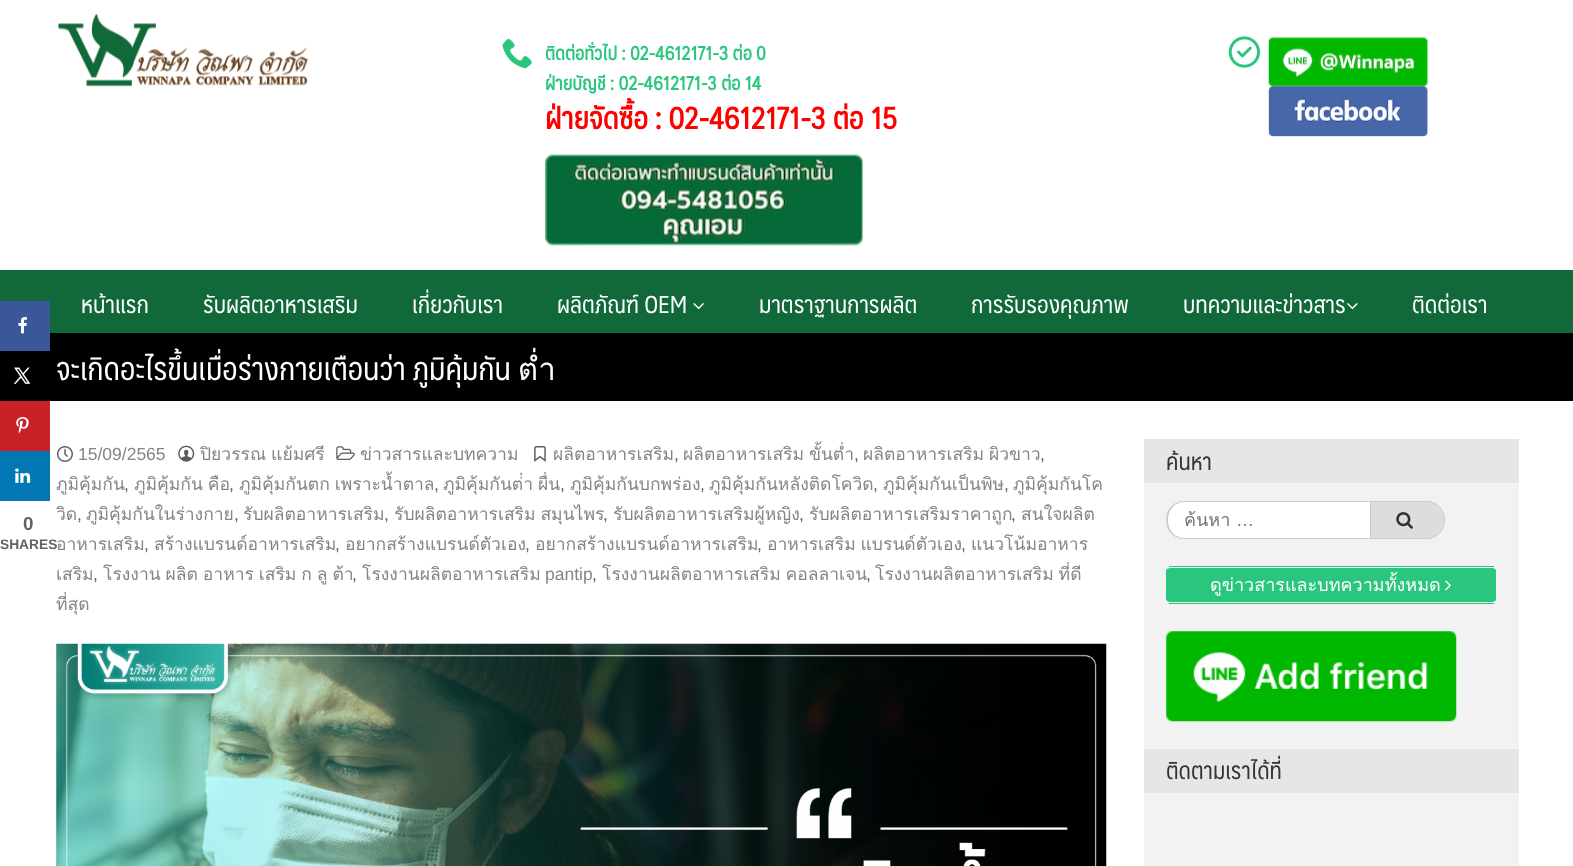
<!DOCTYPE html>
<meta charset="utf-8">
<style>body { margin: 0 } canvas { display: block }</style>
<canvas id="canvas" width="1573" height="866"></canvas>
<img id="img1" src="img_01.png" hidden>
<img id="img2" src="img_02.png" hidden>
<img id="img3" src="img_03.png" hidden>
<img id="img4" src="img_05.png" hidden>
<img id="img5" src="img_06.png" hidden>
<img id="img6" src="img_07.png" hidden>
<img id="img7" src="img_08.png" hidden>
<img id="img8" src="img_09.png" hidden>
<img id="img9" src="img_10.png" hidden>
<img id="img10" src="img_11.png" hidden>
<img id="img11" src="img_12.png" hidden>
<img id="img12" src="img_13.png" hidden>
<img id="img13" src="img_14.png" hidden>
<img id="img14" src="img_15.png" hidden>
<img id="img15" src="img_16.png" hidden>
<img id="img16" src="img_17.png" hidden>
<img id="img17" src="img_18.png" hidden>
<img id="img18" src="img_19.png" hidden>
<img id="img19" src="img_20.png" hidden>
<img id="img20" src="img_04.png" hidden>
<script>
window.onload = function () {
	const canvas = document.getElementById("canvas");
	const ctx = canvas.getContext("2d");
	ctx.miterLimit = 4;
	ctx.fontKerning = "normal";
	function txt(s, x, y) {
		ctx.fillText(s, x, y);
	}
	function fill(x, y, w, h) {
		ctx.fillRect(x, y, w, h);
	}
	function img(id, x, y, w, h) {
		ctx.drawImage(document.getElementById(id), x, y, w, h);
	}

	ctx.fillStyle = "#FFFFFF";
	fill(0, 0, 1573, 866);
	ctx.fillStyle = "#000000";
	fill(0, 333, 1573, 68);
	ctx.fillStyle = "rgba(0, 0, 0, 0.4)";
	ctx.filter = "blur(0.5px)";
	ctx.beginPath();
	ctx.rect(0, 0, 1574, 333);
	ctx.fill();
	ctx.filter = "none";
	ctx.fillStyle = "#116939";
	fill(0, 270, 1573, 63);
	ctx.fillStyle = "#3A5799";
	fill(0, 301, 50, 50);
	img("img1", 18, 317, 9, 17);
	img("img2", 13, 367, 18, 17);
	ctx.fillStyle = "#C82228";
	fill(0, 401, 50, 50);
	img("img3", 16, 417, 13, 17);
	ctx.fillStyle = "#FFFFFF";
	fill(0, 0, 1573, 270);
	img("img4", 58, 13, 251, 74);
	img("img5", 502, 38, 30, 31);
	img("img6", 545, 154, 318, 92);
	img("img7", 1228, 36, 32, 32);
	img("img8", 1268, 37, 160, 50);
	img("img9", 1268, 86, 160, 51);
	img("img10", 693, 303, 11, 7);
	img("img11", 1347, 303, 11, 7);
	img("img12", 57, 446, 16, 16);
	img("img13", 178, 445, 17, 17);
	img("img14", 336, 446, 19, 14);
	img("img15", 534, 446, 12, 16);
	img("img16", 56, 643, 1051, 223);
	ctx.fillStyle = "#F2F2F2";
	fill(1144, 483, 375, 383);
	ctx.fillStyle = "#E6E6E6";
	fill(1144, 439, 375, 44);
	ctx.fillStyle = "#FFFFFF";
	ctx.beginPath();
	ctx.roundRect(1166, 501, 204, 38, [18, 0, 0, 18]);
	ctx.fill();
	ctx.fillStyle = "#CCCCCC";
	ctx.beginPath();
	ctx.moveTo(1184, 501);
	ctx.lineTo(1370, 501);
	ctx.lineTo(1370, 539);
	ctx.lineTo(1184, 539);
	ctx.bezierCurveTo(1174, 539, 1166, 531, 1166, 521);
	ctx.lineTo(1166, 519);
	ctx.bezierCurveTo(1166, 509, 1174, 501, 1184, 501);
	ctx.closePath();
	ctx.moveTo(1184, 502);
	ctx.lineTo(1370, 502);
	ctx.lineTo(1370, 538);
	ctx.lineTo(1184, 538);
	ctx.bezierCurveTo(1175, 538, 1168, 530, 1168, 521);
	ctx.lineTo(1168, 519);
	ctx.bezierCurveTo(1168, 510, 1175, 502, 1184, 502);
	ctx.closePath();
	ctx.fill("evenodd");
	ctx.fillStyle = "#DDDDDD";
	ctx.beginPath();
	ctx.roundRect(1370.5, 501.5, 74, 37, [0, 17.5, 17.5, 0]);
	ctx.fill();
	ctx.strokeStyle = "#CCCCCC";
	ctx.stroke();
	img("img17", 1396, 512, 17, 17);
	ctx.fillStyle = "#2AC67D";
	ctx.beginPath();
	ctx.moveTo(1171, 568);
	ctx.lineTo(1492, 568);
	ctx.bezierCurveTo(1494, 568, 1496, 569, 1496, 571);
	ctx.lineTo(1496, 599);
	ctx.bezierCurveTo(1496, 601, 1494, 602, 1492, 602);
	ctx.lineTo(1171, 602);
	ctx.bezierCurveTo(1168, 602, 1166, 601, 1166, 599);
	ctx.lineTo(1166, 571);
	ctx.bezierCurveTo(1166, 569, 1168, 568, 1171, 568);
	ctx.closePath();
	ctx.fill();
	fill(1169, 566, 325, 1);
	fill(1169, 603, 325, 1);
	img("img18", 1445, 580, 6, 11);
	img("img19", 1166, 631, 291, 91);
	ctx.fillStyle = "#E6E6E6";
	fill(1144, 749, 375, 44);
	ctx.font = "bold 18.75px Liberation Sans";
	ctx.fillStyle = "#5D6368";
	txt("0", 23, 530);
	ctx.font = "bold 18.75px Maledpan";
	ctx.fillStyle = "#2AC67D";
	txt("ติดต่อทั่วไป : 02-4612171-3 ต่อ 0", 545, 60);
	txt("ฝ่ายบัญชี : 02-4612171-3 ต่อ 14", 545, 90);
	ctx.font = "bold 30px Maledpan";
	ctx.fillStyle = "#FD0101";
	txt("ฝ่ายจัดซื้อ : 02-4612171-3 ต่อ 15", 545, 129);
	ctx.font = "23.75px Maledpan";
	ctx.fillStyle = "#FFFFFF";
	txt("หน้าแรก", 81, 313);
	txt("รับผลิตอาหารเสริม", 203, 313);
	txt("เกี่ยวกับเรา", 412, 313);
	txt("ผลิตภัณฑ์ OEM", 557, 313);
	txt("มาตราฐานการผลิต", 759, 313);
	txt("การรับรองคุณภาพ", 971, 313);
	txt("บทความและข่าวสาร", 1183, 313);
	txt("ติดต่อเรา", 1412, 313);
	ctx.font = "31.25px Maledpan";
	txt("จะเกิดอะไรขึ้นเมื่อร่างกายเตือนว่า ภูมิคุ้มกัน ต่ำ", 56, 380);
	ctx.font = "17.5px Liberation Sans";
	ctx.fillStyle = "#858585";
	txt("15/09/2565", 78, 460);
	ctx.wordSpacing = "-1px";
	ctx.font = "17.5px Loma";
	txt("ปิยวรรณ แย้มศรี", 200, 460);
	ctx.wordSpacing = "0px";
	txt("ข่าวสารและบทความ", 360, 460);
	txt("ผลิตอาหารเสริม", 553, 460);
	ctx.font = "17.5px Liberation Sans";
	ctx.fillStyle = "#5C5C5C";
	txt(",", 674, 460);
	ctx.wordSpacing = "-1px";
	ctx.font = "17.5px Loma";
	ctx.fillStyle = "#858585";
	txt("ผลิตอาหารเสริม ขั้นต่ำ", 683, 460);
	ctx.wordSpacing = "0px";
	ctx.font = "17.5px Liberation Sans";
	ctx.fillStyle = "#5C5C5C";
	txt(",", 854, 460);
	ctx.wordSpacing = "-1px";
	ctx.font = "17.5px Loma";
	ctx.fillStyle = "#858585";
	txt("ผลิตอาหารเสริม ผิวขาว", 863, 460);
	ctx.wordSpacing = "0px";
	ctx.font = "17.5px Liberation Sans";
	ctx.fillStyle = "#5C5C5C";
	txt(",", 1040, 460);
	ctx.font = "17.5px Loma";
	ctx.fillStyle = "#858585";
	txt("ภูมิคุ้มกัน", 56, 490);
	ctx.fillStyle = "#0177B4";
	fill(0, 451, 50, 50);
	img("img20", 15, 468, 16, 15);
	ctx.font = "17.5px Liberation Sans";
	ctx.fillStyle = "#5C5C5C";
	txt(",", 124, 490);
	ctx.wordSpacing = "-1px";
	ctx.font = "17.5px Loma";
	ctx.fillStyle = "#858585";
	txt("ภูมิคุ้มกัน คือ", 134, 490);
	ctx.wordSpacing = "0px";
	ctx.font = "17.5px Liberation Sans";
	ctx.fillStyle = "#5C5C5C";
	txt(",", 229, 490);
	ctx.wordSpacing = "-1px";
	ctx.font = "17.5px Loma";
	ctx.fillStyle = "#858585";
	txt("ภูมิคุ้มกันตก เพราะน้ำตาล", 239, 490);
	ctx.wordSpacing = "0px";
	ctx.font = "17.5px Liberation Sans";
	ctx.fillStyle = "#5C5C5C";
	txt(",", 434, 490);
	ctx.wordSpacing = "-1px";
	ctx.font = "17.5px Loma";
	ctx.fillStyle = "#858585";
	txt("ภูมิคุ้มกันต่ํา ผื่น", 443, 490);
	ctx.wordSpacing = "0px";
	ctx.font = "17.5px Liberation Sans";
	ctx.fillStyle = "#5C5C5C";
	txt(",", 560, 490);
	ctx.font = "17.5px Loma";
	ctx.fillStyle = "#858585";
	txt("ภูมิคุ้มกันบกพร่อง", 570, 490);
	ctx.font = "17.5px Liberation Sans";
	ctx.fillStyle = "#5C5C5C";
	txt(",", 700, 490);
	ctx.font = "17.5px Loma";
	ctx.fillStyle = "#858585";
	txt("ภูมิคุ้มกันหลังติดโควิด", 709, 490);
	ctx.font = "17.5px Liberation Sans";
	ctx.fillStyle = "#5C5C5C";
	txt(",", 873, 490);
	ctx.font = "17.5px Loma";
	ctx.fillStyle = "#858585";
	txt("ภูมิคุ้มกันเป็นพิษ", 883, 490);
	ctx.font = "17.5px Liberation Sans";
	ctx.fillStyle = "#5C5C5C";
	txt(",", 1004, 490);
	ctx.font = "17.5px Loma";
	ctx.fillStyle = "#858585";
	txt("ภูมิคุ้มกันโค", 1013, 490);
	txt("วิด", 56, 520);
	ctx.font = "17.5px Liberation Sans";
	ctx.fillStyle = "#5C5C5C";
	txt(",", 77, 520);
	ctx.font = "17.5px Loma";
	ctx.fillStyle = "#858585";
	txt("ภูมิคุ้มกันในร่างกาย", 86, 520);
	txt("สนใจผลิต", 1021, 520);
	ctx.font = "17.5px Liberation Sans";
	ctx.fillStyle = "#5C5C5C";
	txt(",", 234, 520);
	ctx.font = "17.5px Loma";
	ctx.fillStyle = "#858585";
	txt("รับผลิตอาหารเสริม", 243, 520);
	ctx.font = "17.5px Liberation Sans";
	ctx.fillStyle = "#5C5C5C";
	txt(",", 384, 520);
	ctx.wordSpacing = "-1px";
	ctx.font = "17.5px Loma";
	ctx.fillStyle = "#858585";
	txt("รับผลิตอาหารเสริม สมุนไพร", 394, 520);
	ctx.wordSpacing = "0px";
	ctx.font = "17.5px Liberation Sans";
	ctx.fillStyle = "#5C5C5C";
	txt(",", 603, 520);
	ctx.font = "17.5px Loma";
	ctx.fillStyle = "#858585";
	txt("รับผลิตอาหารเสริมผู้หญิง", 613, 520);
	ctx.font = "17.5px Liberation Sans";
	ctx.fillStyle = "#5C5C5C";
	txt(",", 799, 520);
	ctx.font = "17.5px Loma";
	ctx.fillStyle = "#858585";
	txt("รับผลิตอาหารเสริมราคาถูก", 809, 520);
	ctx.font = "17.5px Liberation Sans";
	ctx.fillStyle = "#5C5C5C";
	txt(",", 1011, 520);
	ctx.font = "17.5px Loma";
	ctx.fillStyle = "#858585";
	txt("อาหารเสริม", 56, 550);
	ctx.font = "bold 13.75px Liberation Sans";
	ctx.fillStyle = "#5D6368";
	txt("SHARES", 0, 549);
	ctx.font = "17.5px Liberation Sans";
	ctx.fillStyle = "#5C5C5C";
	txt(",", 144, 550);
	ctx.font = "17.5px Loma";
	ctx.fillStyle = "#858585";
	txt("สร้างแบรนด์อาหารเสริม", 154, 550);
	ctx.font = "17.5px Liberation Sans";
	ctx.fillStyle = "#5C5C5C";
	txt(",", 335, 550);
	ctx.font = "17.5px Loma";
	ctx.fillStyle = "#858585";
	txt("อยากสร้างแบรนด์ตัวเอง", 345, 550);
	ctx.font = "17.5px Liberation Sans";
	ctx.fillStyle = "#5C5C5C";
	txt(",", 525, 550);
	ctx.font = "17.5px Loma";
	ctx.fillStyle = "#858585";
	txt("อยากสร้างแบรนด์อาหารเสริม", 535, 550);
	ctx.font = "17.5px Liberation Sans";
	ctx.fillStyle = "#5C5C5C";
	txt(",", 757, 550);
	ctx.wordSpacing = "-1px";
	ctx.font = "17.5px Loma";
	ctx.fillStyle = "#858585";
	txt("อาหารเสริม แบรนด์ตัวเอง", 767, 550);
	ctx.wordSpacing = "0px";
	ctx.font = "17.5px Liberation Sans";
	ctx.fillStyle = "#5C5C5C";
	txt(",", 961, 550);
	ctx.font = "17.5px Loma";
	ctx.fillStyle = "#858585";
	txt("แนวโน้มอาหาร", 971, 550);
	txt("เสริม", 56, 580);
	ctx.font = "17.5px Liberation Sans";
	ctx.fillStyle = "#5C5C5C";
	txt(",", 93, 580);
	ctx.wordSpacing = "-1px";
	ctx.font = "17.5px Loma";
	ctx.fillStyle = "#858585";
	txt("โรงงาน ผลิต อาหาร เสริม ก ลู ต้า", 103, 580);
	ctx.wordSpacing = "0px";
	ctx.font = "17.5px Liberation Sans";
	ctx.fillStyle = "#5C5C5C";
	txt(",", 352, 580);
	ctx.font = "17.5px Loma";
	ctx.fillStyle = "#858585";
	txt("โรงงานผลิตอาหารเสริม", 362, 580);
	ctx.font = "17.5px Liberation Sans";
	txt("pantip", 545, 580);
	ctx.fillStyle = "#5C5C5C";
	txt(",", 592, 580);
	ctx.wordSpacing = "-1px";
	ctx.font = "17.5px Loma";
	ctx.fillStyle = "#858585";
	txt("โรงงานผลิตอาหารเสริม คอลลาเจน", 602, 580);
	ctx.wordSpacing = "0px";
	ctx.font = "17.5px Liberation Sans";
	ctx.fillStyle = "#5C5C5C";
	txt(",", 866, 580);
	ctx.wordSpacing = "-1px";
	ctx.font = "17.5px Loma";
	ctx.fillStyle = "#858585";
	txt("โรงงานผลิตอาหารเสริม ที่ดี", 875, 580);
	ctx.wordSpacing = "0px";
	txt("ที่สุด", 56, 610);
	ctx.font = "23.5px Maledpan";
	ctx.fillStyle = "#333333";
	txt("ค้นหา", 1166, 470);
	ctx.save();
	ctx.beginPath();
	ctx.rect(1185, 505, 173, 29);
	ctx.clip();
	ctx.font = "18px Loma";
	ctx.fillStyle = "#757575";
	txt("ค้นหา", 1184, 526);
	ctx.restore();
	ctx.font = "18px Liberation Sans";
	ctx.fillStyle = "#757575";
	txt("…", 1236, 526);
	ctx.font = "18px Loma";
	ctx.fillStyle = "#FFFFFF";
	txt("ดูข่าวสารและบทความทั้งหมด", 1210, 591);
	ctx.font = "23.5px Maledpan";
	ctx.fillStyle = "#333333";
	txt("ติดตามเราได้ที่", 1166, 779);
};
</script>
